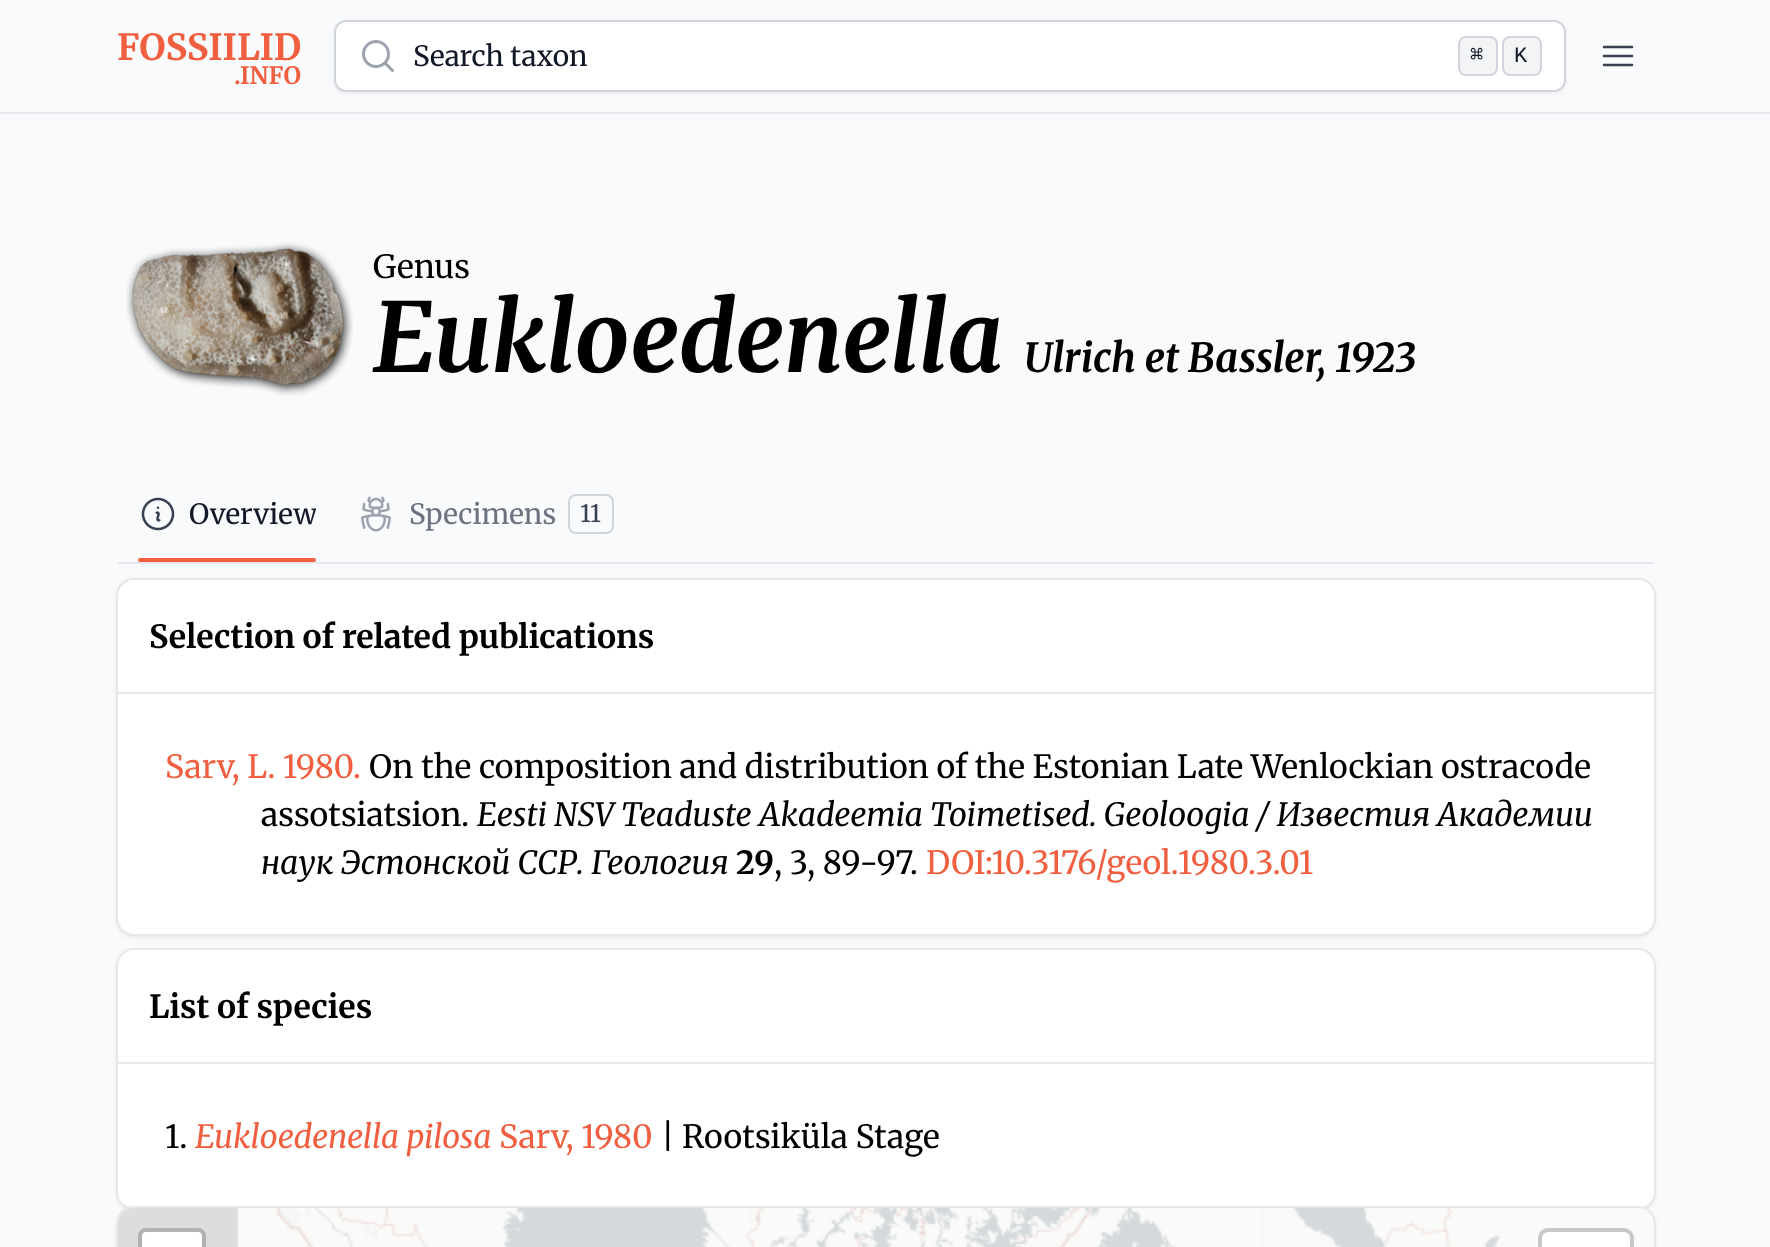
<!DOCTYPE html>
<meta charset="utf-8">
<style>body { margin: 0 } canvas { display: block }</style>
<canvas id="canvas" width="1770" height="1247"></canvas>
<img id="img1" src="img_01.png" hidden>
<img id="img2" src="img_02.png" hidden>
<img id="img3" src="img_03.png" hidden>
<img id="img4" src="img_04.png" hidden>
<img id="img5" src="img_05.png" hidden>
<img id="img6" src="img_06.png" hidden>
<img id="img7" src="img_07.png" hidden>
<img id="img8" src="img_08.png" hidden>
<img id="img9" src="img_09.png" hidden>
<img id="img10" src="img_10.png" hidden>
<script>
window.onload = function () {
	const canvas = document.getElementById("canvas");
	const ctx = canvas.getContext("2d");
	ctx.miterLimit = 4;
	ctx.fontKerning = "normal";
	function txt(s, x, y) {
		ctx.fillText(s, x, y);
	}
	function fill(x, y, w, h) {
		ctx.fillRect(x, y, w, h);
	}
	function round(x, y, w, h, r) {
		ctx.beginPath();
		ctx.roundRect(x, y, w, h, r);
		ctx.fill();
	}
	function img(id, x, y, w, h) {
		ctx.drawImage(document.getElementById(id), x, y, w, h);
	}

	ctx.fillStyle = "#F9FAFB";
	fill(0, 0, 1770, 1247);
	ctx.fillStyle = "#E5E7EB";
	fill(0, 112, 1770, 2);
	ctx.fillStyle = "rgba(0, 0, 0, 0.05)";
	ctx.filter = "blur(2px)";
	ctx.beginPath();
	ctx.roundRect(334, 22, 1232, 72, 12);
	ctx.fill();
	ctx.filter = "none";
	ctx.fillStyle = "#FFFFFF";
	ctx.beginPath();
	ctx.roundRect(335, 21, 1230, 70, 11);
	ctx.fill();
	ctx.strokeStyle = "#D1D5DB";
	ctx.lineWidth = 2;
	ctx.stroke();
	img("img1", 362, 40, 32, 32);
	ctx.fillStyle = "#F3F4F6";
	ctx.beginPath();
	ctx.roundRect(1459, 37, 38, 38, 7);
	ctx.fill();
	ctx.stroke();
	ctx.beginPath();
	ctx.roundRect(1503, 37, 38, 38, 7);
	ctx.fill();
	ctx.stroke();
	ctx.beginPath();
	ctx.moveTo(1604, 47);
	ctx.lineTo(1632, 47);
	ctx.moveTo(1604, 56);
	ctx.lineTo(1632, 56);
	ctx.moveTo(1604, 65);
	ctx.lineTo(1632, 65);
	ctx.strokeStyle = "#374151";
	ctx.lineWidth = 2.5;
	ctx.lineCap = "round";
	ctx.lineJoin = "round";
	ctx.stroke();
	img("img2", 126, 242, 227, 154);
	ctx.fillStyle = "#E5E7EB";
	fill(118, 562, 1536, 2);
	img("img3", 141, 497, 34, 34);
	ctx.fillStyle = "#F05F40";
	round(138, 558, 178, 4, 2);
	img("img4", 361, 496, 30, 36);
	ctx.beginPath();
	ctx.roundRect(569, 495, 44, 38, 7);
	ctx.strokeStyle = "#D1D5DB";
	ctx.lineWidth = 2;
	ctx.lineJoin = "miter";
	ctx.stroke();
	ctx.fillStyle = "rgba(0, 0, 0, 0.1)";
	ctx.filter = "blur(2px)";
	ctx.beginPath();
	ctx.roundRect(120, 584, 1532, 350, 14);
	ctx.fill();
	ctx.filter = "none";
	ctx.filter = "blur(3px)";
	ctx.beginPath();
	ctx.roundRect(118, 582, 1536, 354, 16);
	ctx.fill();
	ctx.filter = "none";
	ctx.beginPath();
	ctx.roundRect(117, 579, 1538, 356, 17);
	ctx.strokeStyle = "#E5E7EB";
	ctx.stroke();
	ctx.fillStyle = "#FFFFFF";
	round(118, 580, 1536, 354, 16);
	ctx.fillStyle = "#E5E7EB";
	fill(118, 692, 1536, 2);
	ctx.fillStyle = "rgba(0, 0, 0, 0.1)";
	ctx.filter = "blur(2px)";
	ctx.beginPath();
	ctx.roundRect(120, 954, 1532, 254, 14);
	ctx.fill();
	ctx.filter = "none";
	ctx.filter = "blur(3px)";
	ctx.beginPath();
	ctx.roundRect(118, 952, 1536, 258, 16);
	ctx.fill();
	ctx.filter = "none";
	ctx.beginPath();
	ctx.roundRect(117, 949, 1538, 260, 17);
	ctx.stroke();
	ctx.fillStyle = "#FFFFFF";
	round(118, 950, 1536, 258, 16);
	ctx.fillStyle = "#E5E7EB";
	fill(118, 1062, 1536, 2);
	ctx.fillStyle = "rgba(0, 0, 0, 0.1)";
	ctx.filter = "blur(3px)";
	ctx.beginPath();
	ctx.roundRect(118, 1210, 1536, 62, 16);
	ctx.fill();
	ctx.filter = "none";
	ctx.beginPath();
	ctx.roundRect(117, 1207, 1538, 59, 17);
	ctx.stroke();
	ctx.fillStyle = "#DDDDDD";
	round(118, 1208, 1536, 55, 16);
	img("img5", 237, 1208, 513, 16);
	img("img6", 750, 1208, 512, 16);
	img("img7", 1262, 1208, 392, 16);
	img("img8", 237, 1224, 513, 23);
	img("img9", 749, 1224, 513, 23);
	img("img10", 1262, 1224, 392, 23);
	ctx.beginPath();
	ctx.roundRect(140, 1230, 64, 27, 6);
	ctx.strokeStyle = "#B1B1B1";
	ctx.lineWidth = 4;
	ctx.stroke();
	ctx.fillStyle = "#FFFFFF";
	ctx.beginPath();
	ctx.moveTo(146, 1232);
	ctx.lineTo(198, 1232);
	ctx.bezierCurveTo(200, 1232, 202, 1234, 202, 1236);
	ctx.lineTo(202, 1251);
	ctx.lineTo(142, 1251);
	ctx.lineTo(142, 1236);
	ctx.bezierCurveTo(142, 1234, 144, 1232, 146, 1232);
	ctx.closePath();
	ctx.fill();
	round(1542, 1232, 88, 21, 6);
	ctx.beginPath();
	ctx.roundRect(1540, 1230, 92, 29, 8);
	ctx.strokeStyle = "rgba(0, 0, 0, 0.2)";
	ctx.stroke();
	ctx.font = "bold 36px Merriweather";
	ctx.fillStyle = "#F05F40";
	txt("FOSSIILID", 117, 60);
	ctx.font = "bold 24px Merriweather";
	txt(".INFO", 234, 84);
	ctx.font = "28px Merriweather";
	ctx.fillStyle = "#111827";
	txt("Search taxon", 413, 66);
	ctx.font = "22px DejaVu Sans Mono";
	txt("⌘", 1470, 62);
	ctx.font = "22px Liberation Mono";
	txt("K", 1514, 62);
	ctx.font = "32px Merriweather";
	ctx.fillStyle = "#000000";
	txt("Genus", 373, 278);
	ctx.font = "italic bold 96px Merriweather";
	txt("Eukloedenella", 373, 372);
	ctx.font = "italic bold 40px Merriweather";
	txt("Ulrich et Bassler, 1923", 1024, 372);
	ctx.save();
	ctx.beginPath();
	ctx.rect(190, 494, 126, 40);
	ctx.clip();
	ctx.font = "28px Merriweather";
	ctx.fillStyle = "#111827";
	txt("Overview", 189, 524);
	ctx.restore();
	ctx.font = "28px Merriweather";
	ctx.fillStyle = "#6B7280";
	txt("Specimens", 409, 524);
	ctx.font = "24px Merriweather";
	ctx.fillStyle = "#374151";
	txt("11", 580, 522);
	ctx.font = "bold 32px Merriweather";
	ctx.fillStyle = "#000000";
	txt("Selection of related publications", 149, 648);
	ctx.font = "32px Merriweather";
	ctx.fillStyle = "#F05F40";
	txt("Sarv, L. 1980.", 165, 778);
	ctx.fillStyle = "#000000";
	txt("On the composition and distribution of the Estonian Late Wenlockian ostracode", 369, 778);
	txt("assotsiatsion.", 261, 826);
	ctx.font = "italic 32px Merriweather";
	txt("Eesti NSV Teaduste Akadeemia Toimetised. Geoloogia / Известия Академии", 477, 826);
	txt("наук Эстонской ССР. Геология", 261, 874);
	ctx.font = "bold 32px Merriweather";
	txt("29", 736, 874);
	ctx.font = "32px Merriweather";
	txt(", 3, 89-97.", 774, 874);
	ctx.fillStyle = "#F05F40";
	txt("DOI:10.3176/geol.1980.3.01", 926, 874);
	ctx.font = "bold 32px Merriweather";
	ctx.fillStyle = "#000000";
	txt("List of species", 149, 1018);
	ctx.font = "32px Merriweather";
	txt("1.", 165, 1148);
	ctx.font = "italic 32px Merriweather";
	ctx.fillStyle = "#F05F40";
	txt("Eukloedenella pilosa", 195, 1148);
	ctx.font = "32px Merriweather";
	txt("Sarv, 1980", 499, 1148);
	ctx.fillStyle = "#000000";
	txt("| Rootsiküla Stage", 661, 1148);
};
</script>
